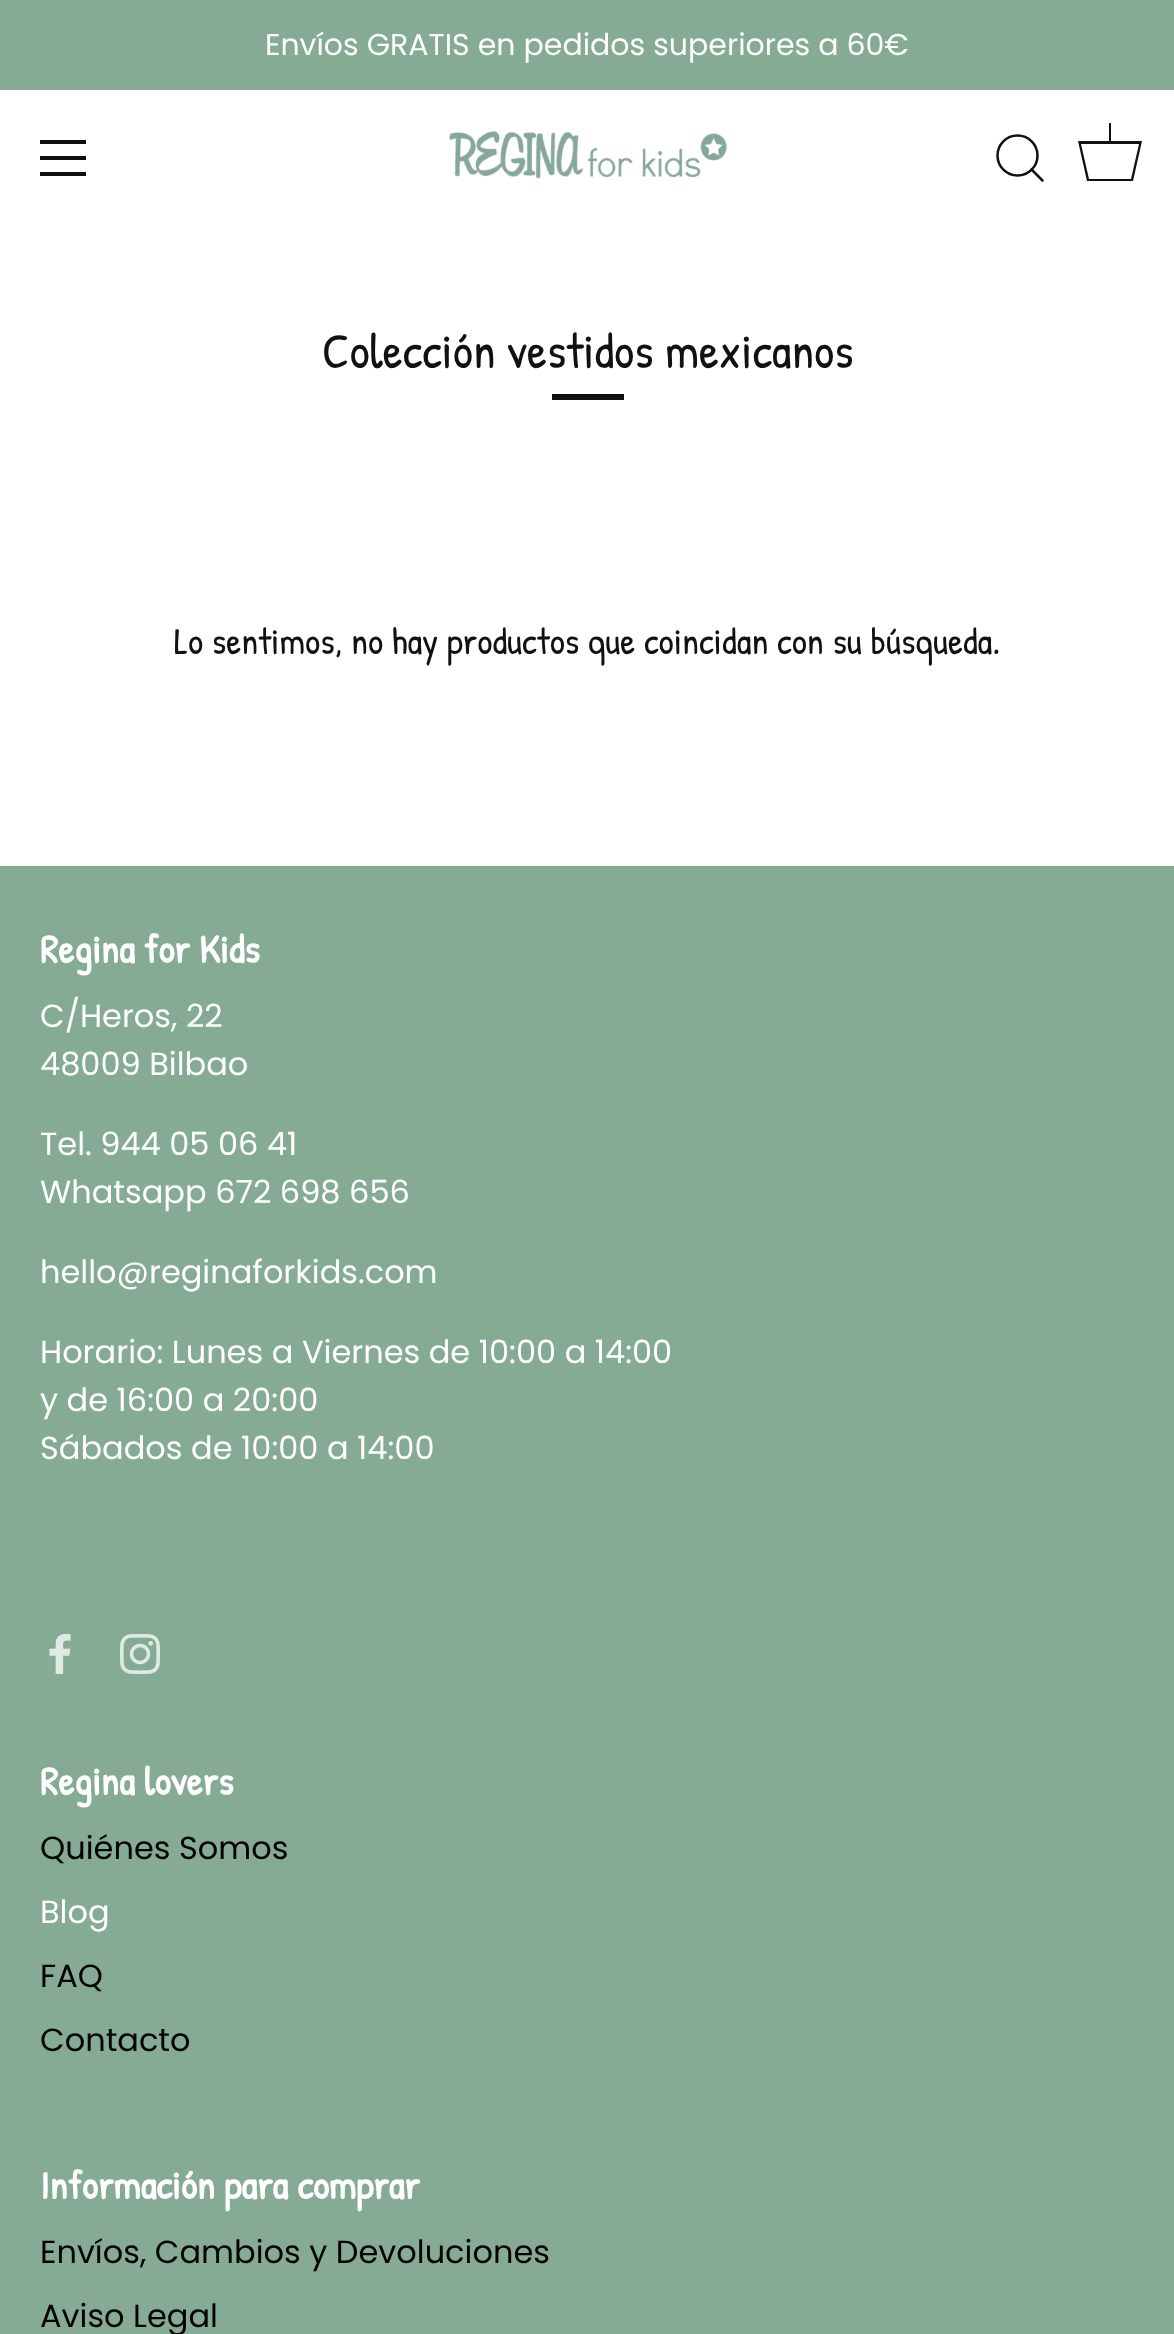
<!DOCTYPE html>
<meta charset="utf-8">
<style>body { margin: 0 } canvas { display: block }</style>
<canvas id="canvas" width="1174" height="2334"></canvas>
<img id="img1" src="img_01.png" hidden>
<img id="img2" src="img_02.png" hidden>
<img id="img3" src="img_03.png" hidden>
<script>
window.onload = function () {
	const canvas = document.getElementById("canvas");
	const ctx = canvas.getContext("2d");
	ctx.miterLimit = 4;
	ctx.fontKerning = "normal";
	function txt(s, x, y) {
		ctx.fillText(s, x, y);
	}
	function fill(x, y, w, h) {
		ctx.fillRect(x, y, w, h);
	}
	function img(id, x, y, w, h) {
		ctx.drawImage(document.getElementById(id), x, y, w, h);
	}

	ctx.fillStyle = "#FFFFFF";
	fill(0, 0, 1174, 2334);
	ctx.fillStyle = "#85AB94";
	fill(0, 0, 1174, 90);
	ctx.fillStyle = "#111111";
	fill(40, 140, 46, 4);
	fill(40, 156, 46, 4);
	fill(40, 172, 46, 4);
	img("img1", 449, 131, 278, 48);
	ctx.beginPath();
	ctx.arc(1017.5, 155.5, 20, 0, Math.PI * 2);
	ctx.strokeStyle = "#111111";
	ctx.lineWidth = 2.5;
	ctx.stroke();
	ctx.beginPath();
	ctx.moveTo(1042.5, 180.5);
	ctx.lineTo(1031.5, 169.5);
	ctx.lineCap = "round";
	ctx.lineJoin = "round";
	ctx.stroke();
	fill(1109, 123, 2, 18);
	ctx.beginPath();
	ctx.moveTo(1139, 144);
	ctx.lineTo(1131, 179);
	ctx.lineTo(1089, 179);
	ctx.lineTo(1081, 144);
	ctx.lineTo(1139, 144);
	ctx.moveTo(1142, 141);
	ctx.lineTo(1078, 141);
	ctx.lineTo(1087, 181);
	ctx.lineTo(1133, 181);
	ctx.closePath();
	ctx.fill();
	fill(552, 394, 72, 6);
	ctx.fillStyle = "#85AB94";
	fill(0, 866, 1174, 1468);
	img("img2", 49, 1634, 22, 40);
	img("img3", 120, 1634, 40, 40);
	ctx.font = "30px Poppins";
	ctx.fillStyle = "#FFFFFF";
	txt("Envíos GRATIS en pedidos superiores a 60€", 265, 55);
	ctx.font = "50px Patrick Hand";
	ctx.fillStyle = "#111111";
	txt("Colección vestidos mexicanos", 322, 368);
	ctx.font = "37.6px Patrick Hand";
	txt("Lo sentimos, no hay productos que coincidan con su búsqueda.", 174, 654);
	ctx.font = "bold 40px Patrick Hand";
	ctx.fillStyle = "#FFFFFF";
	txt("Regina for Kids", 40, 963);
	ctx.font = "32px Poppins";
	txt("C/Heros, 22", 40, 1027);
	txt("48009 Bilbao", 40, 1075);
	txt("Tel. 944 05 06 41", 40, 1155);
	txt("Whatsapp 672 698 656", 40, 1203);
	txt("hello@reginaforkids.com", 40, 1283);
	txt("Horario: Lunes a Viernes de 10:00 a 14:00", 40, 1363);
	txt("y de 16:00 a 20:00", 40, 1411);
	txt("Sábados de 10:00 a 14:00", 40, 1459);
	ctx.font = "bold 40px Patrick Hand";
	txt("Regina lovers", 40, 1795);
	ctx.font = "32px Poppins";
	ctx.fillStyle = "#000000";
	txt("Quiénes Somos", 40, 1859);
	ctx.fillStyle = "#FFFFFF";
	txt("Blog", 40, 1923);
	ctx.fillStyle = "#000000";
	txt("FAQ", 40, 1987);
	txt("Contacto", 40, 2051);
	ctx.font = "bold 40px Patrick Hand";
	ctx.fillStyle = "#FFFFFF";
	txt("Información para comprar", 40, 2199);
	ctx.font = "32px Poppins";
	ctx.fillStyle = "#000000";
	txt("Envíos, Cambios y Devoluciones", 40, 2263);
	txt("Aviso Legal", 40, 2327);
};
</script>
